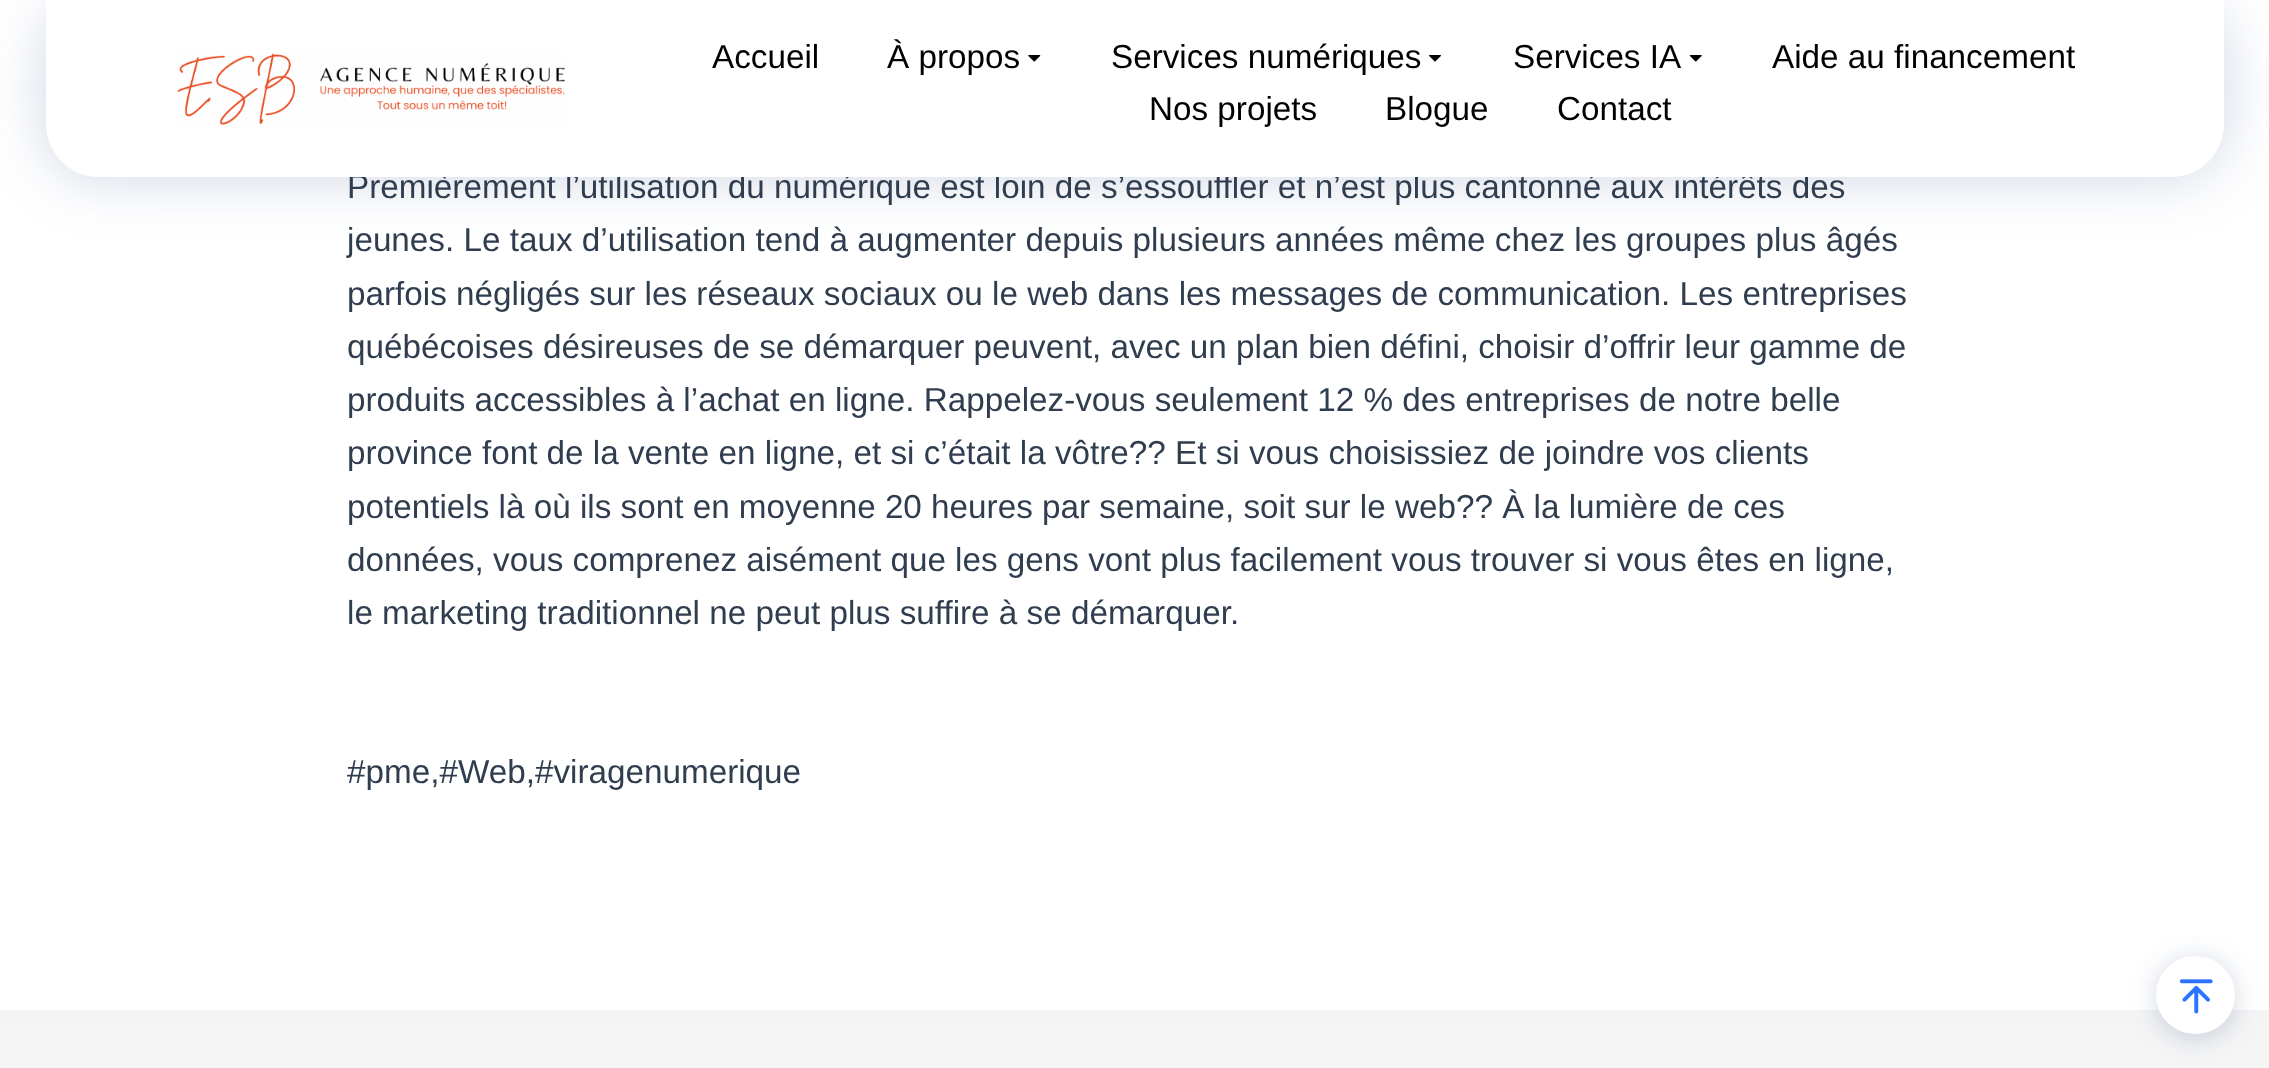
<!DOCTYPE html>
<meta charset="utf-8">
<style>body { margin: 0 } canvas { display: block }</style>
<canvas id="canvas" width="2269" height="1068"></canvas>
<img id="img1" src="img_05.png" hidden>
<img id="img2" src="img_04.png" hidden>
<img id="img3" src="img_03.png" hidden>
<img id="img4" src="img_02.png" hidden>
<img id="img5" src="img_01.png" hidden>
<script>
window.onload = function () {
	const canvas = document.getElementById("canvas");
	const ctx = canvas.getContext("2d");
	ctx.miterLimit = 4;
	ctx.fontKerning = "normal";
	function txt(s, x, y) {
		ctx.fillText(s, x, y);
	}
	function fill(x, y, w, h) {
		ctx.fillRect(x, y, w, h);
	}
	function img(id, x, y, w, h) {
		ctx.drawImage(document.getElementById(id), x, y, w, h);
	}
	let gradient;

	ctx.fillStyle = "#FFFFFF";
	fill(0, 0, 2269, 1068);
	ctx.fillStyle = "rgba(64, 92, 146, 0.25)";
	ctx.filter = "blur(29px)";
	ctx.beginPath();
	ctx.roundRect(46, 0, 2178, 177, 53);
	ctx.fill();
	ctx.filter = "none";
	gradient = ctx.createLinearGradient(1135, 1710, 1135, 1010);
	gradient.addColorStop(0, "#FFFFFF");
	gradient.addColorStop(1, "#F4F4F5");
	ctx.fillStyle = gradient;
	fill(0, 1010, 2269, 58);
	ctx.fillStyle = "rgba(14, 44, 102, 0.2)";
	ctx.filter = "blur(13px)";
	ctx.beginPath();
	ctx.roundRect(2156, 959, 79, 79, 39.5);
	ctx.fill();
	ctx.filter = "none";
	ctx.fillStyle = "#FFFFFF";
	ctx.beginPath();
	ctx.roundRect(2157, 957, 77, 76, 38);
	ctx.fill();
	ctx.strokeStyle = "#FFFFFF";
	ctx.lineWidth = 2;
	ctx.stroke();
	img("img1", 2179, 979, 34, 35);
	ctx.font = "33.25px Liberation Sans";
	ctx.fillStyle = "#303D4F";
	txt("Premièrement l’utilisation du numérique est loin de s’essouffler et n’est plus cantonné aux intérêts des", 347, 198);
	ctx.fillStyle = "#FFFFFF";
	ctx.beginPath();
	ctx.roundRect(46, 0, 2178, 177, [0, 0, 53, 53]);
	ctx.fill();
	ctx.fillStyle = "#040000";
	txt("Contact", 1557, 120);
	txt("Blogue", 1385, 120);
	txt("Nos projets", 1149, 120);
	txt("Aide au financement", 1772, 68);
	img("img2", 1689, 55, 13, 7);
	txt("Services IA", 1513, 68);
	img("img3", 1429, 55, 12, 7);
	txt("Services numériques", 1111, 68);
	img("img4", 1028, 55, 13, 7);
	txt("À propos", 887, 68);
	txt("Accueil", 712, 68);
	img("img5", 177, 53, 388, 72);
	ctx.fillStyle = "#303D4F";
	txt("jeunes. Le taux d’utilisation tend à augmenter depuis plusieurs années même chez les groupes plus âgés", 347, 251);
	txt("parfois négligés sur les réseaux sociaux ou le web dans les messages de communication. Les entreprises", 347, 305);
	txt("québécoises désireuses de se démarquer peuvent, avec un plan bien défini, choisir d’offrir leur gamme de", 347, 358);
	txt("produits accessibles à l’achat en ligne. Rappelez-vous seulement 12 % des entreprises de notre belle", 347, 411);
	txt("province font de la vente en ligne, et si c’était la vôtre?? Et si vous choisissiez de joindre vos clients", 347, 464);
	txt("potentiels là où ils sont en moyenne 20 heures par semaine, soit sur le web?? À la lumière de ces", 347, 518);
	txt("données, vous comprenez aisément que les gens vont plus facilement vous trouver si vous êtes en ligne,", 347, 571);
	txt("le marketing traditionnel ne peut plus suffire à se démarquer.", 347, 624);
	txt("#pme,#Web,#viragenumerique", 347, 783);
};
</script>
